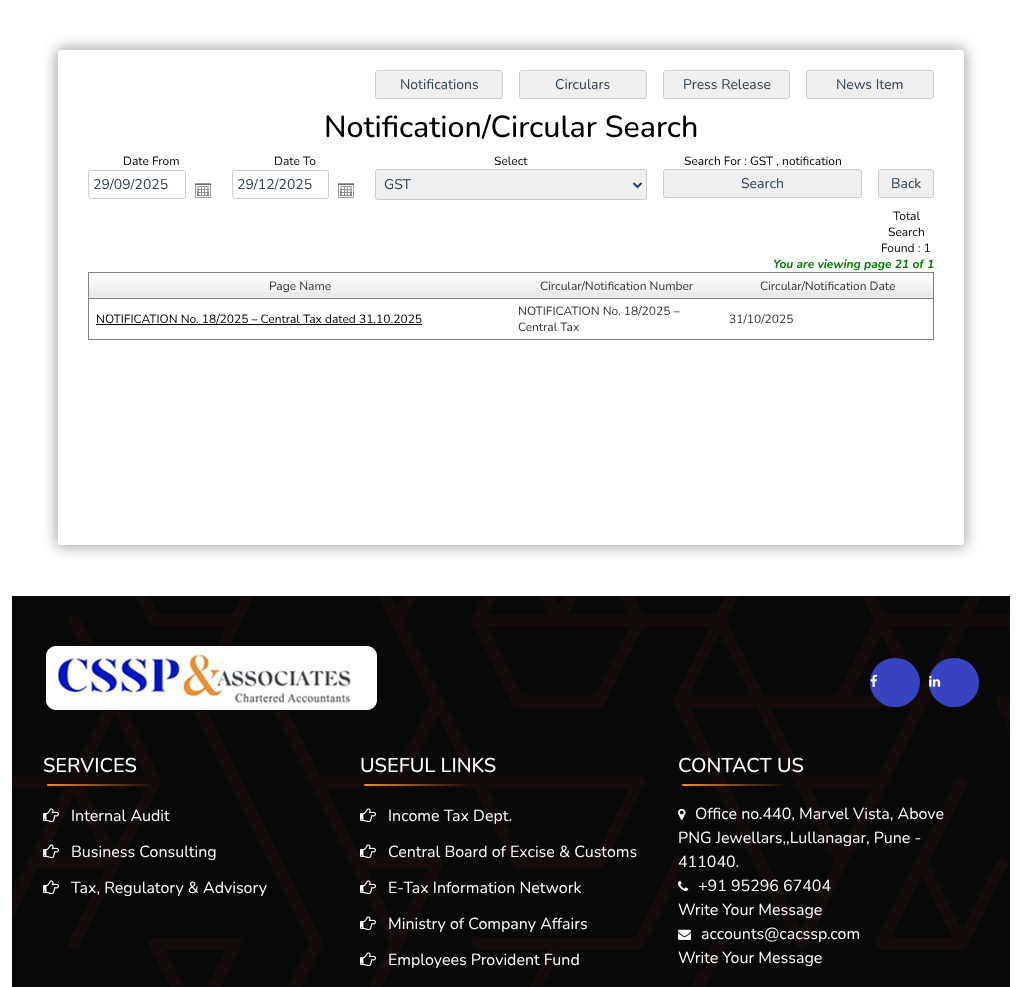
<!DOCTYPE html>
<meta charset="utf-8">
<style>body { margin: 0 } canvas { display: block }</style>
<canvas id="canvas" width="1022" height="987"></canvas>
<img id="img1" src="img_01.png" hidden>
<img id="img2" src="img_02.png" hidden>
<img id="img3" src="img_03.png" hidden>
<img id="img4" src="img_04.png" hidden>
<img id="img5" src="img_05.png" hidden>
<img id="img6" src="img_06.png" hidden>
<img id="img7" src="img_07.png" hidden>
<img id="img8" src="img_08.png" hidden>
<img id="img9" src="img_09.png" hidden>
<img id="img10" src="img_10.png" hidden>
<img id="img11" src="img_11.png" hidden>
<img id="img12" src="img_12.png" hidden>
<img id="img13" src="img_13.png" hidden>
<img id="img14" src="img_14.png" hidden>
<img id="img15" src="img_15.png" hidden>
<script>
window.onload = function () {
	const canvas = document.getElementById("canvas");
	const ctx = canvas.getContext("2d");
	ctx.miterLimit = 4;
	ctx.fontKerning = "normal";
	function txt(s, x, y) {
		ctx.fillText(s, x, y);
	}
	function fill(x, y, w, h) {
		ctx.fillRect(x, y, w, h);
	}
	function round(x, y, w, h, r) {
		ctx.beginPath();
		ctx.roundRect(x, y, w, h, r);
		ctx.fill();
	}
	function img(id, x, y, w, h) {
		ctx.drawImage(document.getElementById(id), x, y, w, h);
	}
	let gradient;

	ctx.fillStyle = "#FFFFFF";
	fill(0, 0, 1022, 987);
	ctx.fillStyle = "rgba(0, 0, 0, 0.4)";
	ctx.filter = "blur(7.5px)";
	ctx.beginPath();
	ctx.roundRect(57, 49, 908, 497, 4);
	ctx.fill();
	ctx.filter = "none";
	ctx.fillStyle = "#FFFFFF";
	round(58, 50, 906, 495, 3);
	ctx.fillStyle = "#EFEFEF";
	ctx.beginPath();
	ctx.roundRect(375.5, 70.5, 127, 28, 2.5);
	ctx.fill();
	ctx.strokeStyle = "#CCCCCC";
	ctx.stroke();
	ctx.beginPath();
	ctx.roundRect(519.5, 70.5, 127, 28, 2.5);
	ctx.fill();
	ctx.stroke();
	ctx.beginPath();
	ctx.roundRect(663.5, 70.5, 126, 28, 2.5);
	ctx.fill();
	ctx.stroke();
	ctx.beginPath();
	ctx.roundRect(806.5, 70.5, 127, 28, 2.5);
	ctx.fill();
	ctx.stroke();
	ctx.beginPath();
	ctx.roundRect(88.5, 170.5, 97, 28, 2.5);
	ctx.stroke();
	img("img1", 195, 183, 16, 15);
	ctx.beginPath();
	ctx.roundRect(232.5, 170.5, 96, 28, 2.5);
	ctx.stroke();
	img("img1", 338, 183, 16, 15);
	ctx.beginPath();
	ctx.roundRect(375.5, 169.5, 271, 30, 2.5);
	ctx.fill();
	ctx.stroke();
	ctx.beginPath();
	ctx.moveTo(633.5, 183);
	ctx.lineTo(637.5, 187);
	ctx.lineTo(641.5, 183);
	ctx.strokeStyle = "#2C3E50";
	ctx.lineWidth = 2;
	ctx.stroke();
	ctx.beginPath();
	ctx.roundRect(663.5, 169.5, 198, 28, 2.5);
	ctx.fill();
	ctx.strokeStyle = "#CCCCCC";
	ctx.lineWidth = 1;
	ctx.stroke();
	ctx.beginPath();
	ctx.roundRect(878.5, 169.5, 55, 28, 2.5);
	ctx.fill();
	ctx.stroke();
	ctx.strokeStyle = "#828282";
	ctx.strokeRect(88.5, 272.5, 845, 67);
	ctx.fillStyle = "#EAEAEA";
	fill(89, 292, 844, 6);
	img("img2", 89, 273, 422, 19);
	ctx.fillStyle = "#828282";
	fill(89, 298, 844, 1);
	img("img3", 511, 273, 211, 19);
	img("img3", 722, 273, 211, 19);
	ctx.fillStyle = "#000000";
	fill(96, 324, 326, 1);
	img("img4", 12, 596, 998, 391);
	img("img5", 46, 646, 331, 64);
	ctx.fillStyle = "#3843C1";
	round(870, 658, 50, 49, 24.5);
	img("img6", 870, 674, 7, 13);
	round(929, 658, 50, 49, 24.5);
	img("img7", 929, 675, 12, 12);
	gradient = ctx.createLinearGradient(47, 785, 153, 785);
	gradient.addColorStop(0, "#F08E33");
	gradient.addColorStop(1, "#140C0B");
	ctx.fillStyle = gradient;
	round(47, 784, 106, 2, 1);
	img("img8", 43, 808, 16, 15);
	img("img9", 43, 844, 16, 15);
	img("img10", 43, 880, 16, 15);
	gradient = ctx.createLinearGradient(364, 785, 470, 785);
	gradient.addColorStop(0, "#F08E33");
	gradient.addColorStop(1, "#140C0B");
	ctx.fillStyle = gradient;
	round(364, 784, 106, 2, 1);
	img("img10", 360, 808, 16, 15);
	img("img11", 360, 844, 16, 15);
	img("img12", 360, 880, 16, 15);
	img("img10", 360, 916, 16, 15);
	img("img10", 360, 952, 16, 15);
	img("img13", 678, 808, 8, 12);
	img("img14", 678, 880, 11, 11);
	img("img15", 678, 929, 13, 11);
	ctx.font = "14px Nunito";
	ctx.fillStyle = "#2C3E50";
	txt("Notifications", 400, 89);
	txt("Circulars", 555, 89);
	txt("Press Release", 683, 89);
	txt("News Item", 836, 89);
	ctx.font = "500 30.4px Nunito";
	ctx.fillStyle = "#000000";
	txt("Notification/Circular Search", 324, 137);
	ctx.font = "12px Nunito";
	txt("Date From", 123, 165);
	ctx.font = "14px Nunito";
	ctx.fillStyle = "#2C3E50";
	txt("29/09/2025", 93, 189);
	ctx.font = "12px Nunito";
	ctx.fillStyle = "#000000";
	txt("Date To", 274, 165);
	ctx.font = "14px Nunito";
	ctx.fillStyle = "#2C3E50";
	txt("29/12/2025", 237, 189);
	ctx.font = "12px Nunito";
	ctx.fillStyle = "#000000";
	txt("Select", 494, 165);
	ctx.font = "14px Nunito";
	ctx.fillStyle = "#2C3E50";
	txt("GST", 384, 189);
	ctx.font = "12px Nunito";
	ctx.fillStyle = "#000000";
	txt("Search For : GST , notification", 684, 165);
	ctx.font = "14px Nunito";
	ctx.fillStyle = "#2C3E50";
	txt("Search", 741, 188);
	txt("Back", 891, 188);
	ctx.font = "12px Nunito";
	ctx.fillStyle = "#000000";
	txt("Total", 893, 220);
	txt("Search", 888, 236);
	txt("Found : 1", 881, 252);
	ctx.font = "italic bold 12px Nunito";
	ctx.fillStyle = "#008000";
	txt("You are viewing page 21 of 1", 773, 268);
	ctx.font = "12px Nunito";
	ctx.fillStyle = "#333333";
	txt("Page Name", 269, 290);
	txt("Circular/Notification Number", 540, 290);
	txt("Circular/Notification Date", 760, 290);
	ctx.fillStyle = "#000000";
	txt("NOTIFICATION No. 18/2025 – Central Tax dated 31.10.2025", 96, 323);
	ctx.fillStyle = "#333333";
	txt("NOTIFICATION No. 18/2025 –", 518, 315);
	txt("Central Tax", 518, 331);
	txt("31/10/2025", 729, 323);
	ctx.font = "500 20px Nunito";
	ctx.fillStyle = "#FFFFFF";
	txt("SERVICES", 43, 772);
	ctx.font = "16px Nunito";
	txt("Internal Audit", 71, 821);
	txt("Business Consulting", 71, 857);
	txt("Tax, Regulatory & Advisory", 71, 893);
	ctx.font = "500 20px Nunito";
	txt("USEFUL LINKS", 360, 772);
	ctx.font = "16px Nunito";
	txt("Income Tax Dept.", 388, 821);
	txt("Central Board of Excise & Customs", 388, 857);
	txt("E-Tax Information Network", 388, 893);
	txt("Ministry of Company Affairs", 388, 929);
	txt("Employees Provident Fund", 388, 965);
	ctx.font = "500 20px Nunito";
	txt("CONTACT US", 678, 772);
	ctx.font = "16px Nunito";
	txt("Office no.440, Marvel Vista, Above", 695, 819);
	txt("PNG Jewellars,,Lullanagar, Pune -", 678, 843);
	txt("411040.", 678, 867);
	txt("+91 95296 67404", 698, 891);
	txt("Write Your Message", 678, 915);
	txt("accounts@cacssp.com", 701, 939);
	txt("Write Your Message", 678, 963);
};
</script>
